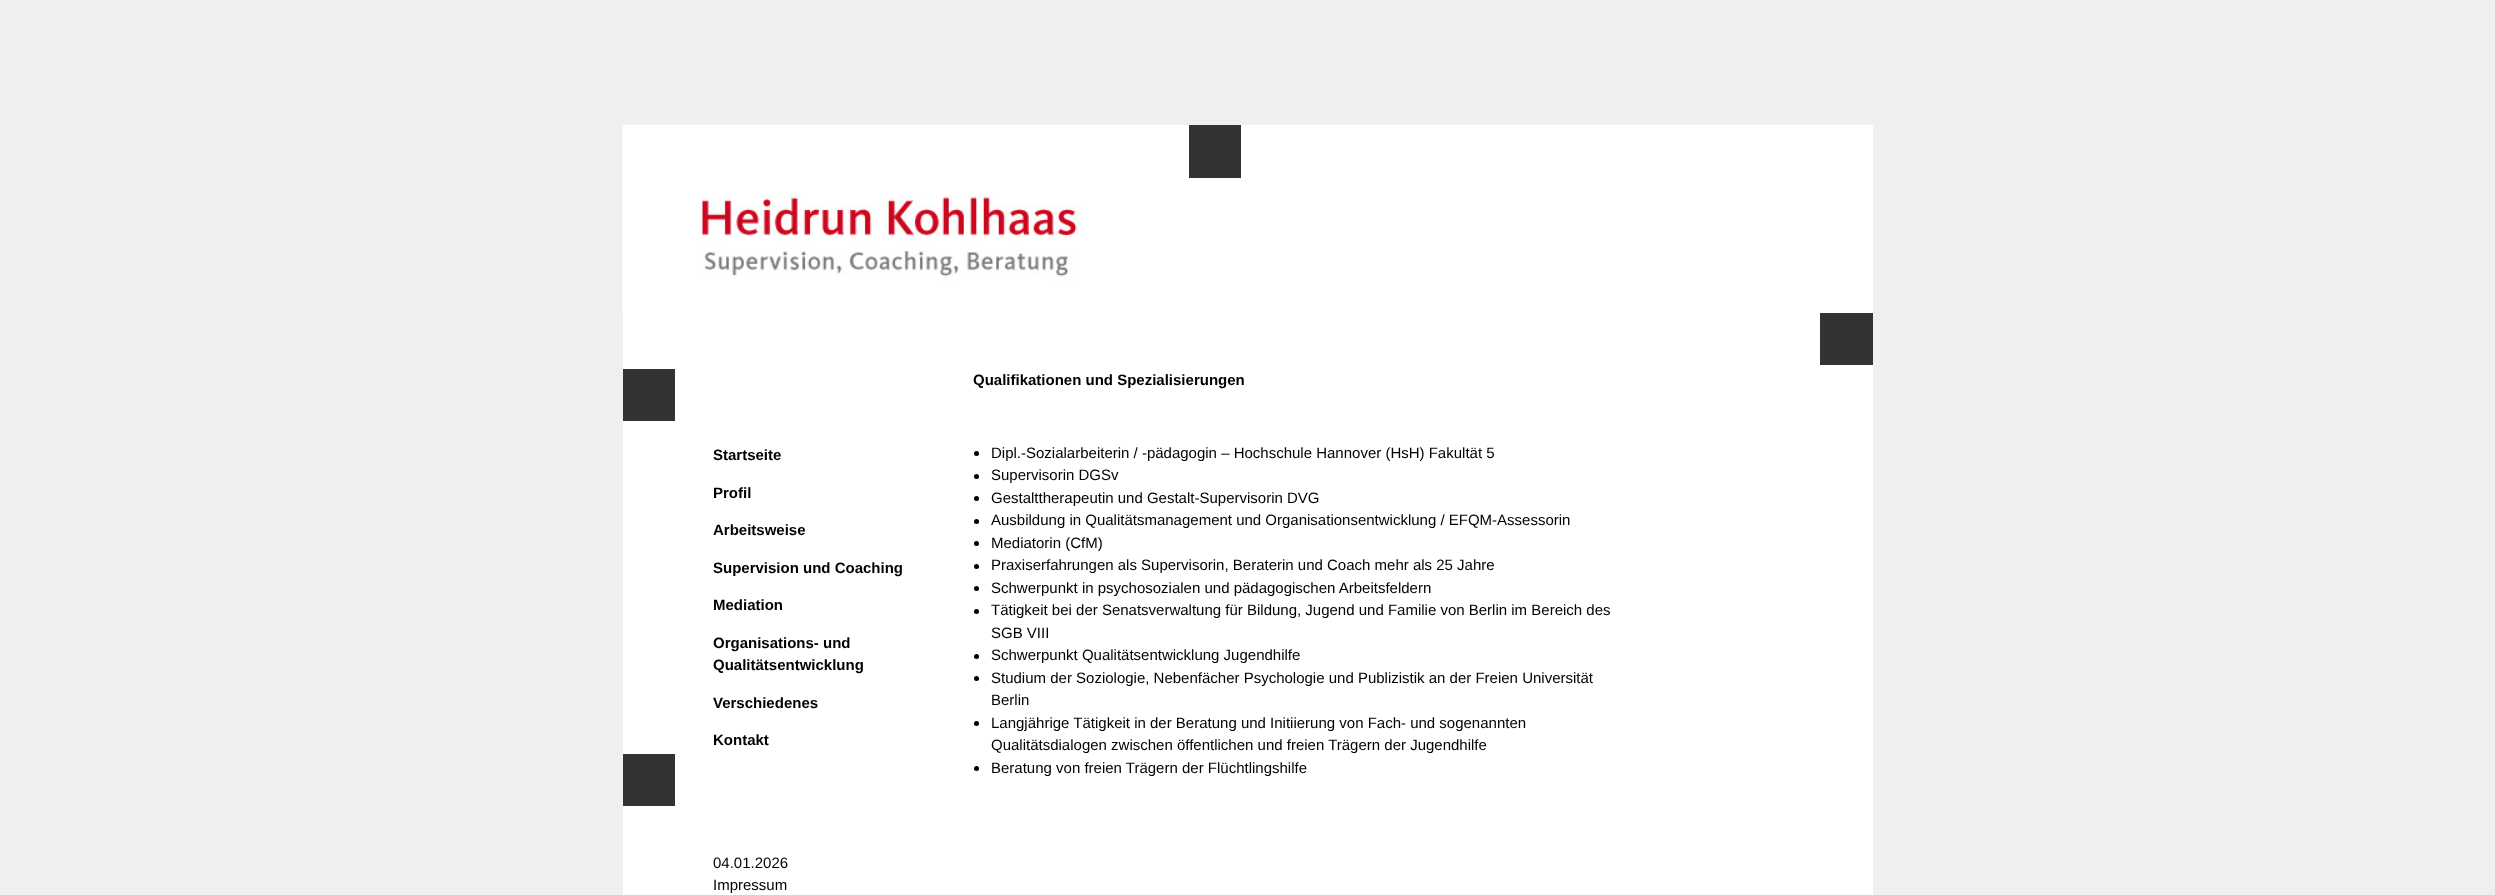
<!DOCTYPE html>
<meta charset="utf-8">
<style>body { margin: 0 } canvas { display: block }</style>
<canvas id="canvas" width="2495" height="895"></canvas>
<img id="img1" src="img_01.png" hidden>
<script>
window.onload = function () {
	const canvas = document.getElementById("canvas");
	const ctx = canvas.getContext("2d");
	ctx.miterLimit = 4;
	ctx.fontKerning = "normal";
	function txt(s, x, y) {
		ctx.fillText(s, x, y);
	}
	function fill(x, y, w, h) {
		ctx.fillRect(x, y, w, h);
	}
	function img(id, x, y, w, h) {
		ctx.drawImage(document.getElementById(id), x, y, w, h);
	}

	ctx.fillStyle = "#EFEFEF";
	fill(0, 0, 2495, 895);
	ctx.fillStyle = "#FFFFFF";
	fill(623, 125, 1250, 770);
	img("img1", 622, 125, 460, 188);
	ctx.fillStyle = "#333333";
	fill(1189, 125, 52, 53);
	fill(1820, 313, 53, 52);
	fill(623, 369, 52, 52);
	ctx.fillStyle = "#000000";
	ctx.beginPath();
	ctx.arc(976.5, 453.5, 2.5, 0, Math.PI * 2);
	ctx.fill();
	ctx.beginPath();
	ctx.arc(976.5, 476.5, 2.5, 0, Math.PI * 2);
	ctx.fill();
	ctx.beginPath();
	ctx.arc(976.5, 498.5, 2.5, 0, Math.PI * 2);
	ctx.fill();
	ctx.beginPath();
	ctx.arc(976.5, 521.5, 2.5, 0, Math.PI * 2);
	ctx.fill();
	ctx.beginPath();
	ctx.arc(976.5, 543.5, 2.5, 0, Math.PI * 2);
	ctx.fill();
	ctx.beginPath();
	ctx.arc(976.5, 566.5, 2.5, 0, Math.PI * 2);
	ctx.fill();
	ctx.beginPath();
	ctx.arc(976.5, 588.5, 2.5, 0, Math.PI * 2);
	ctx.fill();
	ctx.beginPath();
	ctx.arc(976.5, 611.5, 2.5, 0, Math.PI * 2);
	ctx.fill();
	ctx.beginPath();
	ctx.arc(976.5, 656.5, 2.5, 0, Math.PI * 2);
	ctx.fill();
	ctx.beginPath();
	ctx.arc(976.5, 678.5, 2.5, 0, Math.PI * 2);
	ctx.fill();
	ctx.beginPath();
	ctx.arc(976.5, 723.5, 2.5, 0, Math.PI * 2);
	ctx.fill();
	ctx.beginPath();
	ctx.arc(976.5, 768.5, 2.5, 0, Math.PI * 2);
	ctx.fill();
	ctx.fillStyle = "#333333";
	fill(623, 754, 52, 52);
	ctx.font = "bold 15px Liberation Sans";
	ctx.fillStyle = "#000000";
	txt("Startseite", 713, 460);
	txt("Profil", 713, 498);
	txt("Arbeitsweise", 713, 535);
	txt("Supervision und Coaching", 713, 573);
	txt("Mediation", 713, 610);
	txt("Organisations- und", 713, 648);
	txt("Qualitätsentwicklung", 713, 670);
	txt("Verschiedenes", 713, 708);
	txt("Kontakt", 713, 745);
	ctx.font = "15px Liberation Sans";
	txt("04.01.2026", 713, 868);
	txt("Impressum", 713, 890);
	ctx.font = "bold 15px Liberation Sans";
	txt("Qualifikationen und Spezialisierungen", 973, 385);
	ctx.font = "15px Liberation Sans";
	txt("Dipl.-Sozialarbeiterin / -pädagogin – Hochschule Hannover (HsH) Fakultät 5", 991, 458);
	txt("Supervisorin DGSv", 991, 480);
	txt("Gestalttherapeutin und Gestalt-Supervisorin DVG", 991, 503);
	txt("Ausbildung in Qualitätsmanagement und Organisationsentwicklung / EFQM-Assessorin", 991, 525);
	txt("Mediatorin (CfM)", 991, 548);
	txt("Praxiserfahrungen als Supervisorin, Beraterin und Coach mehr als 25 Jahre", 991, 570);
	txt("Schwerpunkt in psychosozialen und pädagogischen Arbeitsfeldern", 991, 593);
	txt("Tätigkeit bei der Senatsverwaltung für Bildung, Jugend und Familie von Berlin im Bereich des", 991, 615);
	txt("SGB VIII", 991, 638);
	txt("Schwerpunkt Qualitätsentwicklung Jugendhilfe", 991, 660);
	txt("Studium der Soziologie, Nebenfächer Psychologie und Publizistik an der Freien Universität", 991, 683);
	txt("Berlin", 991, 705);
	txt("Langjährige Tätigkeit in der Beratung und Initiierung von Fach- und sogenannten", 991, 728);
	txt("Qualitätsdialogen zwischen öffentlichen und freien Trägern der Jugendhilfe", 991, 750);
	txt("Beratung von freien Trägern der Flüchtlingshilfe", 991, 773);
};
</script>
